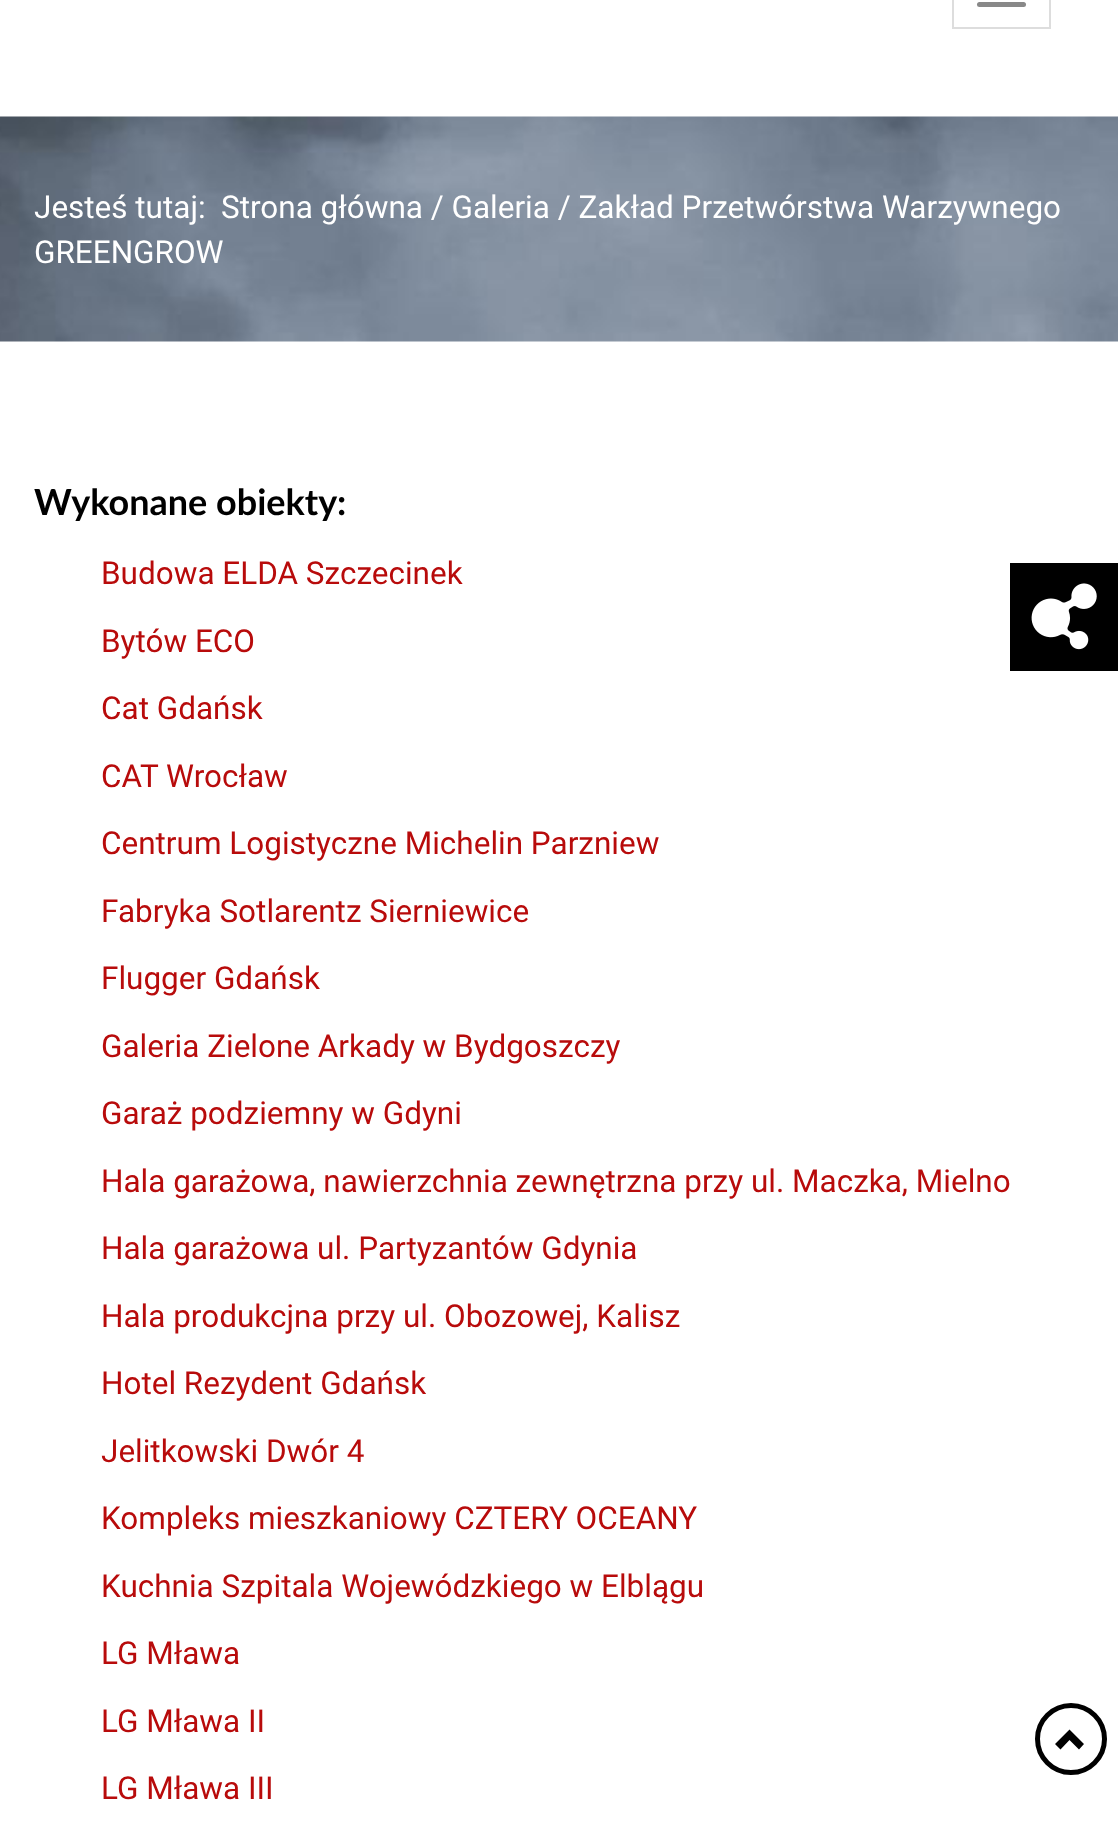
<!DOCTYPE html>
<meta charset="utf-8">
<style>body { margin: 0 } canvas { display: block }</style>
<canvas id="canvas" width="1118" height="1846"></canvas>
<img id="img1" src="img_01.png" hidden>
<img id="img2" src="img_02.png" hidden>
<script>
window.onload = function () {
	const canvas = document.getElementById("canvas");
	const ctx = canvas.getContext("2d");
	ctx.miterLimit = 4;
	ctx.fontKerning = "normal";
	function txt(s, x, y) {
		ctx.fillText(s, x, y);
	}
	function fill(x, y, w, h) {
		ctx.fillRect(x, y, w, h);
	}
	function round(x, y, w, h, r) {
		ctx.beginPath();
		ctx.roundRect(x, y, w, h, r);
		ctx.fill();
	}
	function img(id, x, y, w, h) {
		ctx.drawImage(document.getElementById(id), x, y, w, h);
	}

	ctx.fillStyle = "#FFFFFF";
	fill(0, 0, 1118, 1846);
	ctx.strokeStyle = "#DDDDDD";
	ctx.lineWidth = 2;
	ctx.strokeRect(953, -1, 97, 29);
	ctx.fillStyle = "#888888";
	round(977, 2, 49, 5, 2.5);
	img("img1", 0, 116, 1118, 226);
	ctx.fillStyle = "#000000";
	fill(1010, 563, 108, 108);
	img("img2", 1031, 583, 66, 67);
	ctx.beginPath();
	ctx.arc(1071, 1739, 33.5, 0, Math.PI * 2);
	ctx.strokeStyle = "#000000";
	ctx.lineWidth = 5;
	ctx.stroke();
	ctx.beginPath();
	ctx.moveTo(1084, 1744);
	ctx.lineTo(1079, 1749.5);
	ctx.lineTo(1069.5, 1740);
	ctx.lineTo(1060.5, 1749.5);
	ctx.lineTo(1055, 1744);
	ctx.lineTo(1069.5, 1729.5);
	ctx.closePath();
	ctx.fill();
	ctx.font = "31.5px Roboto";
	ctx.fillStyle = "#FFFFFF";
	txt("Jesteś tutaj:", 34, 218);
	txt("Strona główna / Galeria / Zakład Przetwórstwa Warzywnego", 221, 218);
	txt("GREENGROW", 34, 263);
	ctx.font = "bold 36px Lato";
	ctx.fillStyle = "#000000";
	txt("Wykonane obiekty:", 34, 515);
	ctx.font = "31.5px Roboto";
	ctx.fillStyle = "#B80B0B";
	txt("Budowa ELDA Szczecinek", 101, 584);
	txt("Bytów ECO", 101, 652);
	txt("Cat Gdańsk", 101, 719);
	txt("CAT Wrocław", 101, 787);
	txt("Centrum Logistyczne Michelin Parzniew", 101, 854);
	txt("Fabryka Sotlarentz Sierniewice", 101, 922);
	txt("Flugger Gdańsk", 101, 989);
	txt("Galeria Zielone Arkady w Bydgoszczy", 101, 1057);
	txt("Garaż podziemny w Gdyni", 101, 1124);
	txt("Hala garażowa, nawierzchnia zewnętrzna przy ul. Maczka, Mielno", 101, 1192);
	txt("Hala garażowa ul. Partyzantów Gdynia", 101, 1259);
	txt("Hala produkcjna przy ul. Obozowej, Kalisz", 101, 1327);
	txt("Hotel Rezydent Gdańsk", 101, 1394);
	txt("Jelitkowski Dwór 4", 101, 1462);
	txt("Kompleks mieszkaniowy CZTERY OCEANY", 101, 1529);
	txt("Kuchnia Szpitala Wojewódzkiego w Elblągu", 101, 1597);
	txt("LG Mława", 101, 1664);
	txt("LG Mława II", 101, 1732);
	txt("LG Mława III", 101, 1799);
};
</script>
